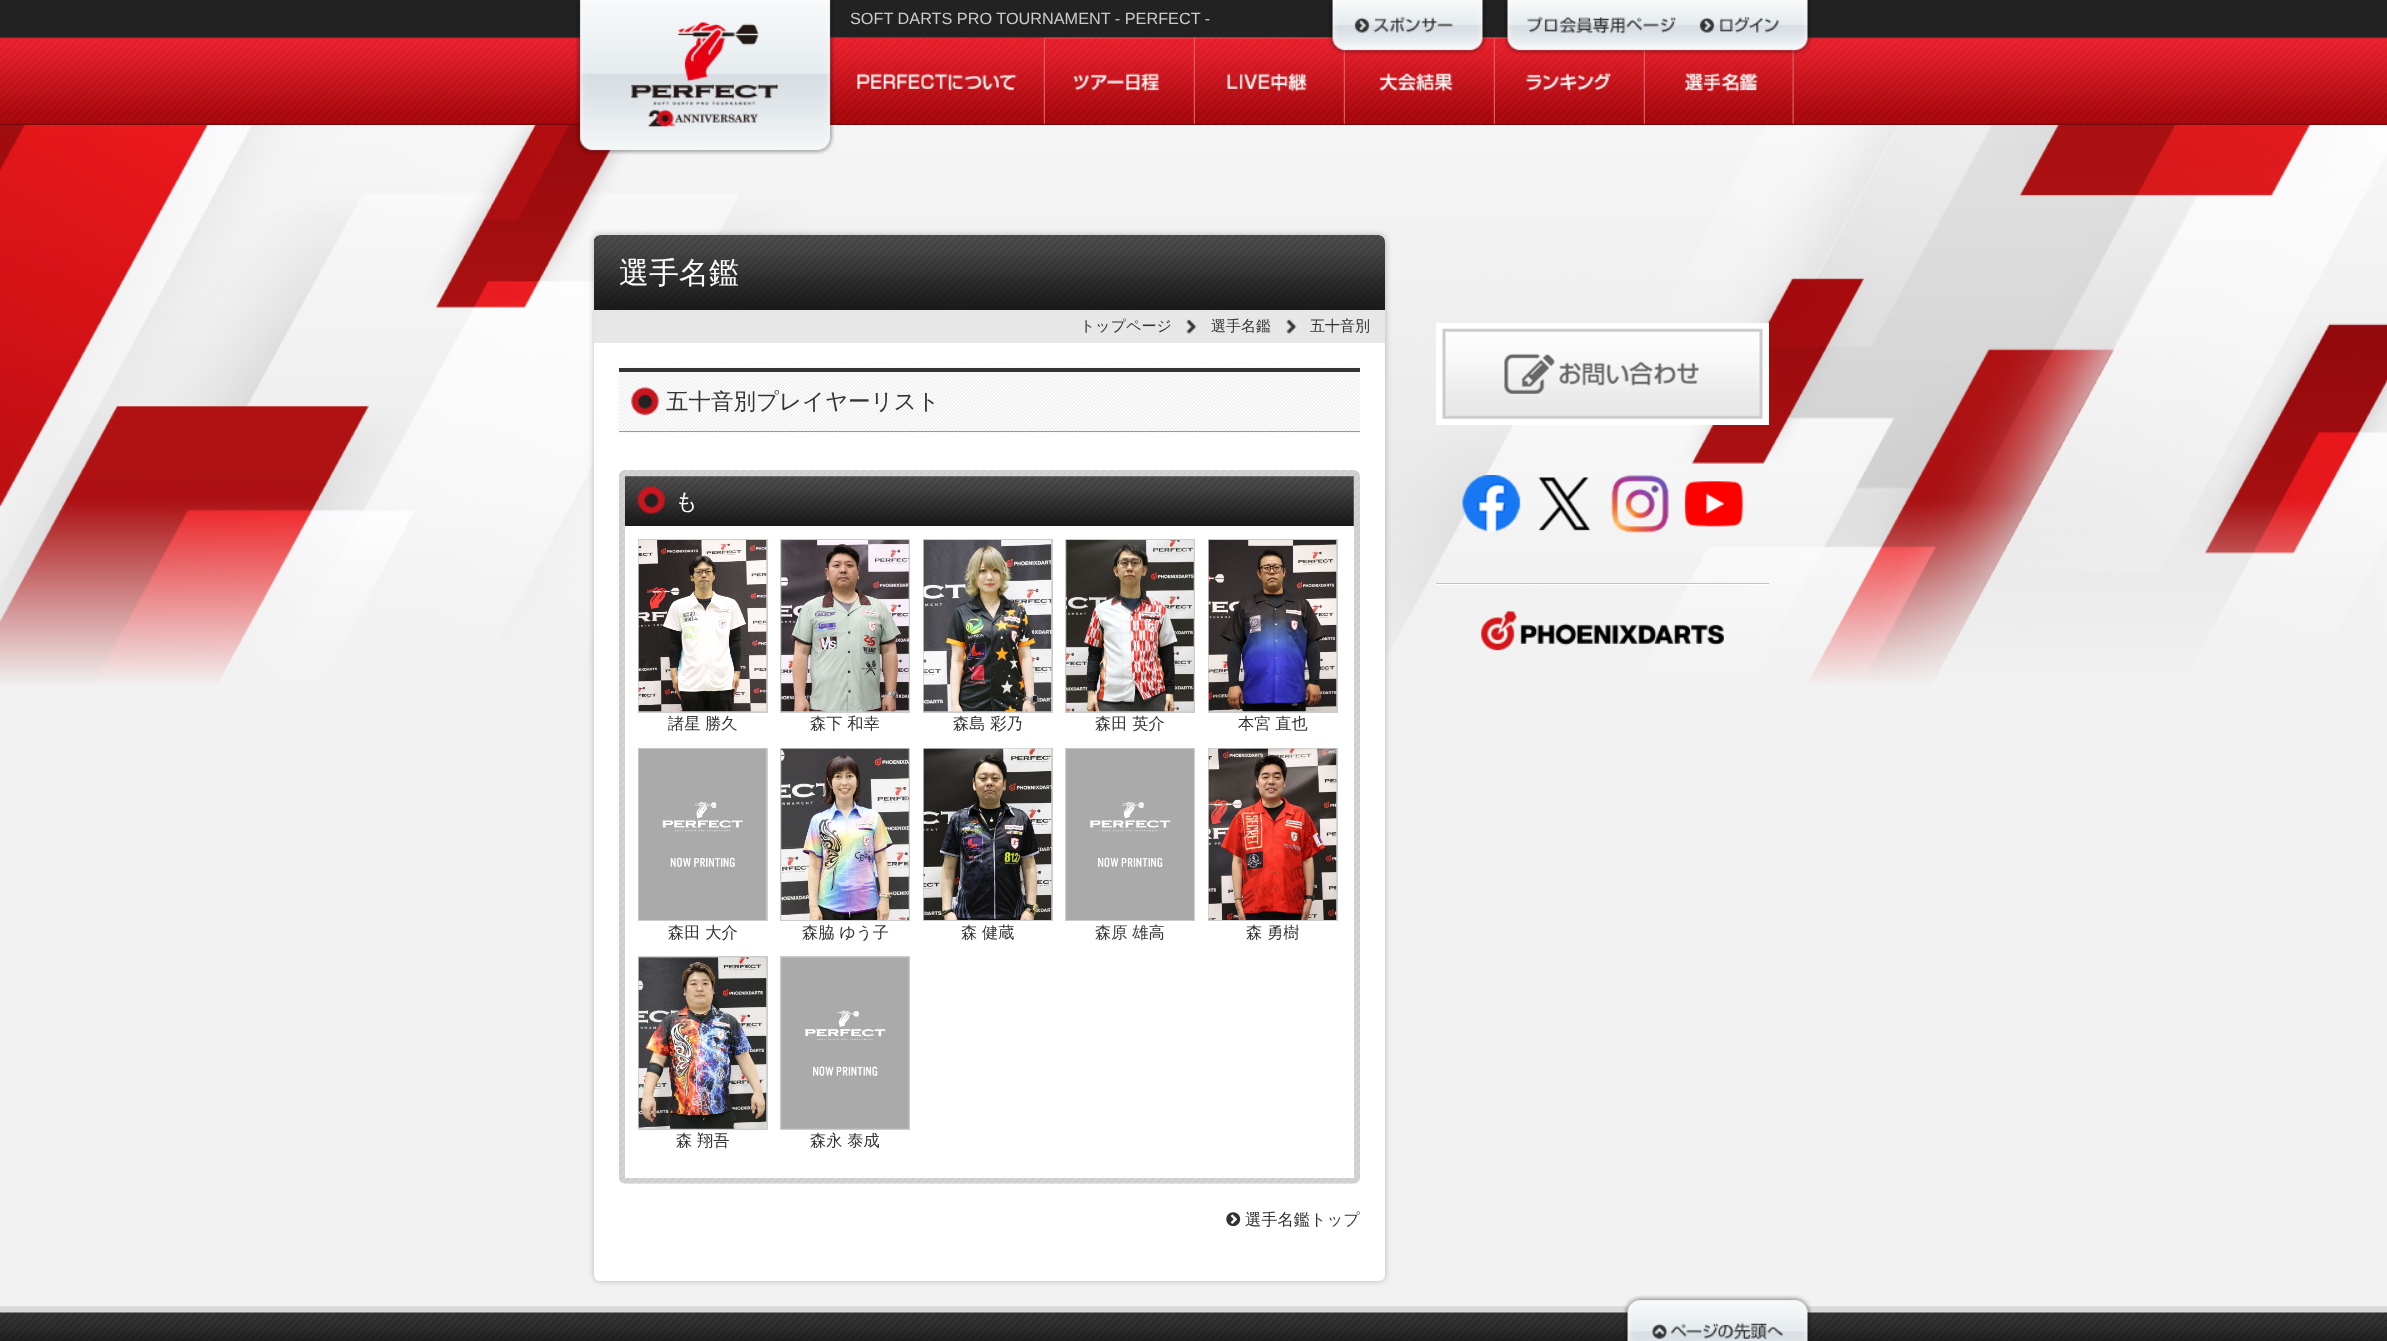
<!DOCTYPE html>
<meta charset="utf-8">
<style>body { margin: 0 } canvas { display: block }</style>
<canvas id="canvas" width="2387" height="1341"></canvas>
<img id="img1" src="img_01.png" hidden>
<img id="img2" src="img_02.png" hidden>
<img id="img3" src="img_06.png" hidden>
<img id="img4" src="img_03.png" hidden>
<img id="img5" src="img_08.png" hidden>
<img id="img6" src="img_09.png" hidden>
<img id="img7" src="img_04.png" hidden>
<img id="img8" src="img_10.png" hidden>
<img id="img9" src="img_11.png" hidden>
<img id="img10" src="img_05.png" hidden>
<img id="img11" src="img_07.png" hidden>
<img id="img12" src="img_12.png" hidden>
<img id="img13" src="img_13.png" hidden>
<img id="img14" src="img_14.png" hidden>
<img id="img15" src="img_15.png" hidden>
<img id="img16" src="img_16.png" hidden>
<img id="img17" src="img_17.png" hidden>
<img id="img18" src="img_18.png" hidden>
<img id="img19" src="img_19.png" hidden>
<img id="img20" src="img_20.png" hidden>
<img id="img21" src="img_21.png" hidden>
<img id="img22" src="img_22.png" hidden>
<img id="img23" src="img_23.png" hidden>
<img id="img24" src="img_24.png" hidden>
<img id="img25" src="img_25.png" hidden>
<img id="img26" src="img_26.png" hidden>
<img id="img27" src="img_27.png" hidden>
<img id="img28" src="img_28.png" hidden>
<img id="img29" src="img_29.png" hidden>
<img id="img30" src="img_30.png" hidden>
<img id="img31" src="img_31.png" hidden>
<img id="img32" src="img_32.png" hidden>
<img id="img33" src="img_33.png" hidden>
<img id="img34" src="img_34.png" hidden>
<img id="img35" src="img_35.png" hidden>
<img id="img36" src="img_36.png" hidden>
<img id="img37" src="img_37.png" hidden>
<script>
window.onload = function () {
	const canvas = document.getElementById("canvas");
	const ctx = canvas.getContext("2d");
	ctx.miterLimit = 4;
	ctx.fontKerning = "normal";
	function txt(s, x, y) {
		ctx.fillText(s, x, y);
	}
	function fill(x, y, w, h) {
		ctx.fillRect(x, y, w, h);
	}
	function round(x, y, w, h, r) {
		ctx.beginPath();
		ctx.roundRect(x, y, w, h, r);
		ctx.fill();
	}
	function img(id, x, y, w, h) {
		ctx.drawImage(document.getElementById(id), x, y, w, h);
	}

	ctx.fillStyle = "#FFFFFF";
	fill(0, 0, 2387, 1341);
	img("img1", 0, 125, 2387, 1182);
	img("img2", 0, 0, 2387, 125);
	img("img3", 831, 37, 214, 87);
	img("img4", 575, 0, 260, 155);
	img("img5", 1195, 37, 150, 87);
	img("img6", 1345, 37, 150, 87);
	img("img7", 1328, 0, 159, 55);
	img("img8", 1495, 37, 150, 87);
	img("img9", 1645, 49, 149, 75);
	img("img10", 1503, 0, 309, 55);
	img("img11", 1045, 37, 150, 87);
	ctx.fillStyle = "rgba(0, 0, 0, 0.25)";
	ctx.filter = "blur(3px)";
	ctx.beginPath();
	ctx.roundRect(594, 235, 791, 1046, 6);
	ctx.fill();
	ctx.filter = "none";
	ctx.fillStyle = "#FFFFFF";
	round(594, 235, 791, 1046, 6);
	img("img12", 594, 235, 791, 75);
	ctx.fillStyle = "#E7E7E7";
	fill(594, 310, 791, 33);
	img("img13", 1186, 319, 11, 15);
	img("img13", 1286, 319, 11, 15);
	img("img14", 618, 367, 742, 66);
	ctx.fillStyle = "#333333";
	fill(619, 368, 741, 4);
	ctx.fillStyle = "#999999";
	fill(619, 431, 741, 1);
	img("img15", 619, 470, 741, 714);
	img("img16", 625, 476, 729, 50);
	ctx.fillStyle = "#FFFFFF";
	fill(625, 526, 729, 652);
	ctx.fillStyle = "#CCCCCC";
	fill(638, 539, 130, 174);
	img("img17", 638, 540, 129, 172);
	fill(780, 539, 130, 174);
	img("img18", 781, 540, 128, 172);
	fill(923, 539, 130, 174);
	img("img19", 923, 540, 129, 172);
	fill(1065, 539, 130, 174);
	img("img20", 1066, 540, 128, 172);
	fill(1208, 539, 130, 174);
	img("img21", 1208, 540, 129, 172);
	fill(638, 748, 130, 173);
	img("img22", 638, 748, 129, 172);
	fill(780, 748, 130, 173);
	img("img23", 781, 748, 128, 172);
	fill(923, 748, 130, 173);
	img("img24", 923, 748, 129, 172);
	fill(1065, 748, 130, 173);
	img("img25", 1066, 748, 128, 172);
	fill(1208, 748, 130, 173);
	img("img26", 1208, 748, 129, 172);
	fill(638, 956, 130, 174);
	img("img27", 638, 957, 129, 172);
	fill(780, 956, 130, 174);
	img("img28", 781, 957, 128, 172);
	img("img29", 1226, 1212, 15, 15);
	ctx.fillStyle = "#FFFFFF";
	fill(1436, 323, 333, 102);
	img("img30", 1442, 328, 321, 91);
	ctx.beginPath();
	ctx.moveTo(1436, 439);
	ctx.lineTo(1436, 585);
	ctx.lineTo(1769, 585);
	ctx.lineTo(1769, 439);
	ctx.lineTo(1769, 584);
	ctx.lineTo(1436, 584);
	ctx.closePath();
	ctx.fill();
	ctx.fillStyle = "#C2C2C2";
	fill(1436, 583, 333, 1);
	img("img31", 1462, 475, 59, 57);
	img("img32", 1538, 477, 53, 54);
	img("img33", 1611, 475, 58, 58);
	img("img34", 1684, 481, 59, 46);
	img("img35", 1481, 611, 243, 40);
	img("img36", 0, 1306, 2387, 35);
	img("img37", 1623, 1295, 189, 46);
	ctx.font = "16.25px Liberation Sans";
	ctx.fillStyle = "#CCCCCC";
	txt("SOFT DARTS PRO TOURNAMENT - PERFECT -", 850, 24);
	ctx.font = "500 30px WenQuanYi Zen Hei";
	ctx.fillStyle = "#FFFFFF";
	txt("選手名鑑", 619, 283);
	ctx.font = "500 15px WenQuanYi Zen Hei";
	ctx.fillStyle = "#333333";
	txt("トップページ", 1080, 331);
	txt("選手名鑑", 1211, 331);
	txt("五十音別", 1310, 331);
	ctx.font = "500 22.5px WenQuanYi Zen Hei";
	txt("五十音別プレイヤーリスト", 666, 409);
	ctx.letterSpacing = "7px";
	ctx.fillStyle = "#FFFFFF";
	txt("も", 675, 509);
	ctx.letterSpacing = "0px";
	ctx.font = "500 16.25px WenQuanYi Zen Hei";
	ctx.fillStyle = "#333333";
	txt("諸星", 668, 729);
	txt("勝久", 705, 729);
	txt("森下 和幸", 810, 729);
	txt("森島 彩乃", 953, 729);
	txt("森田 英介", 1095, 729);
	txt("本宮 直也", 1238, 729);
	txt("森田 大介", 668, 938);
	txt("森脇 ゆう子", 802, 938);
	txt("森 健蔵", 961, 938);
	txt("森原 雄高", 1095, 938);
	txt("森 勇樹", 1246, 938);
	txt("森 翔吾", 676, 1146);
	txt("森永 泰成", 810, 1146);
	txt("選手名鑑トップ", 1245, 1225);
};
</script>
